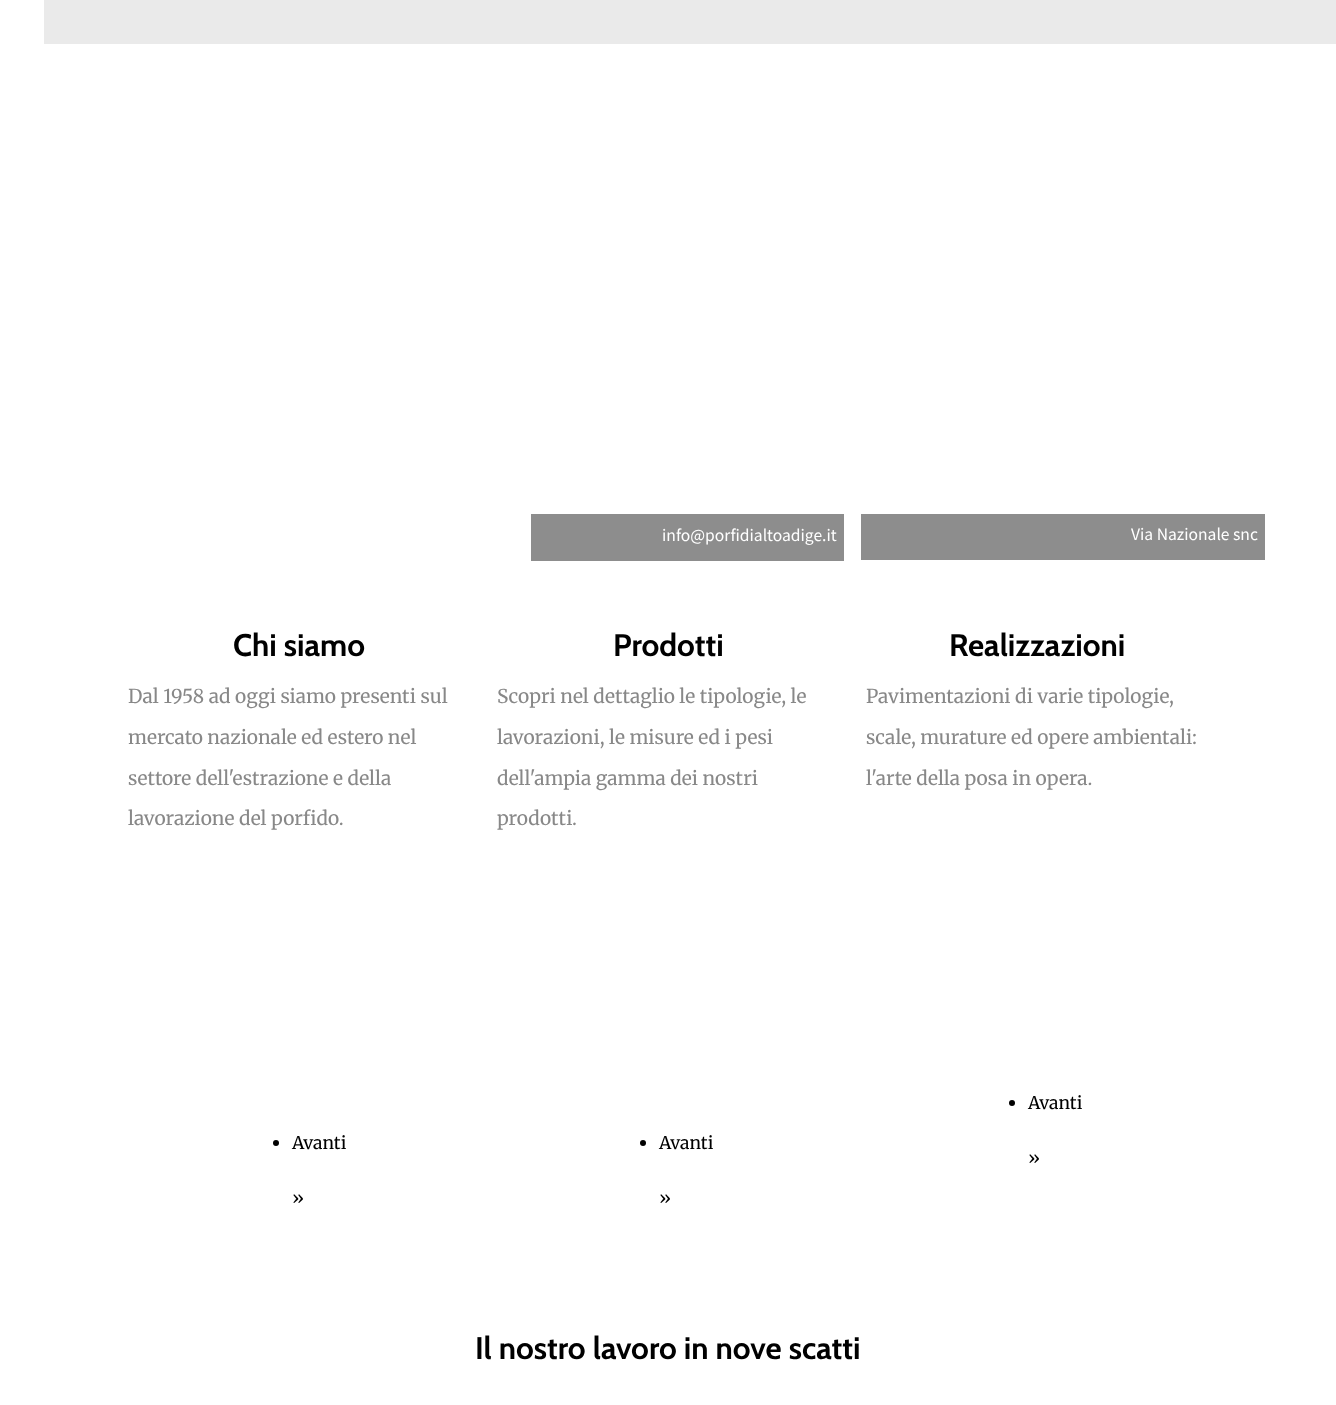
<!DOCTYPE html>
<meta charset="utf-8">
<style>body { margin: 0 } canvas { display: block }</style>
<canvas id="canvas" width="1336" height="1405"></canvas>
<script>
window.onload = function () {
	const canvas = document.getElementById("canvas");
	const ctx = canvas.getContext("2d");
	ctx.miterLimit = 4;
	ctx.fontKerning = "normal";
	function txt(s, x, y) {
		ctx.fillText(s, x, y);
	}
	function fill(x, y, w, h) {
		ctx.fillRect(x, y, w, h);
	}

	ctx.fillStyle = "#FFFFFF";
	fill(0, 0, 1336, 1405);
	ctx.fillStyle = "#EAEAEA";
	fill(44, 0, 1292, 44);
	ctx.fillStyle = "#8D8D8D";
	fill(531, 514, 313, 47);
	fill(861, 514, 404, 46);
	ctx.fillStyle = "#000000";
	ctx.beginPath();
	ctx.arc(276, 1143, 3, 0, Math.PI * 2);
	ctx.fill();
	ctx.beginPath();
	ctx.arc(643, 1143, 3, 0, Math.PI * 2);
	ctx.fill();
	ctx.beginPath();
	ctx.arc(1012, 1103, 3, 0, Math.PI * 2);
	ctx.fill();
	ctx.font = "17.5px Source Sans Pro";
	ctx.fillStyle = "#FFFFFF";
	txt("info@porfidialtoadige.it", 662, 541);
	txt("Via Nazionale snc", 1131, 540);
	ctx.font = "bold 31.25px Cabin";
	ctx.fillStyle = "#000000";
	txt("Chi siamo", 233, 656);
	ctx.font = "19.1px 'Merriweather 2'";
	ctx.fillStyle = "#888888";
	txt("Dal 1958 ad oggi siamo presenti sul", 128, 703);
	txt("mercato nazionale ed estero nel", 128, 744);
	txt("settore dell'estrazione e della", 128, 785);
	txt("lavorazione del porfido.", 128, 825);
	ctx.font = "bold 31.25px Cabin";
	ctx.fillStyle = "#000000";
	txt("Prodotti", 613, 656);
	ctx.font = "19.1px 'Merriweather 2'";
	ctx.fillStyle = "#888888";
	txt("Scopri nel dettaglio le tipologie, le", 497, 703);
	txt("lavorazioni, le misure ed i pesi", 497, 744);
	txt("dell'ampia gamma dei nostri", 497, 785);
	txt("prodotti.", 497, 825);
	ctx.font = "bold 31.25px Cabin";
	ctx.fillStyle = "#000000";
	txt("Realizzazioni", 949, 656);
	ctx.font = "19.1px 'Merriweather 2'";
	ctx.fillStyle = "#888888";
	txt("Pavimentazioni di varie tipologie,", 866, 703);
	txt("scale, murature ed opere ambientali:", 866, 744);
	txt("l'arte della posa in opera.", 866, 785);
	ctx.font = "17.5px Merriweather";
	ctx.fillStyle = "#000000";
	txt("Avanti", 292, 1149);
	txt("»", 292, 1204);
	txt("Avanti", 659, 1149);
	txt("»", 659, 1204);
	txt("Avanti", 1028, 1109);
	txt("»", 1028, 1164);
	ctx.font = "bold 31.25px Cabin";
	txt("Il nostro lavoro in nove scatti", 475, 1359);
};
</script>
